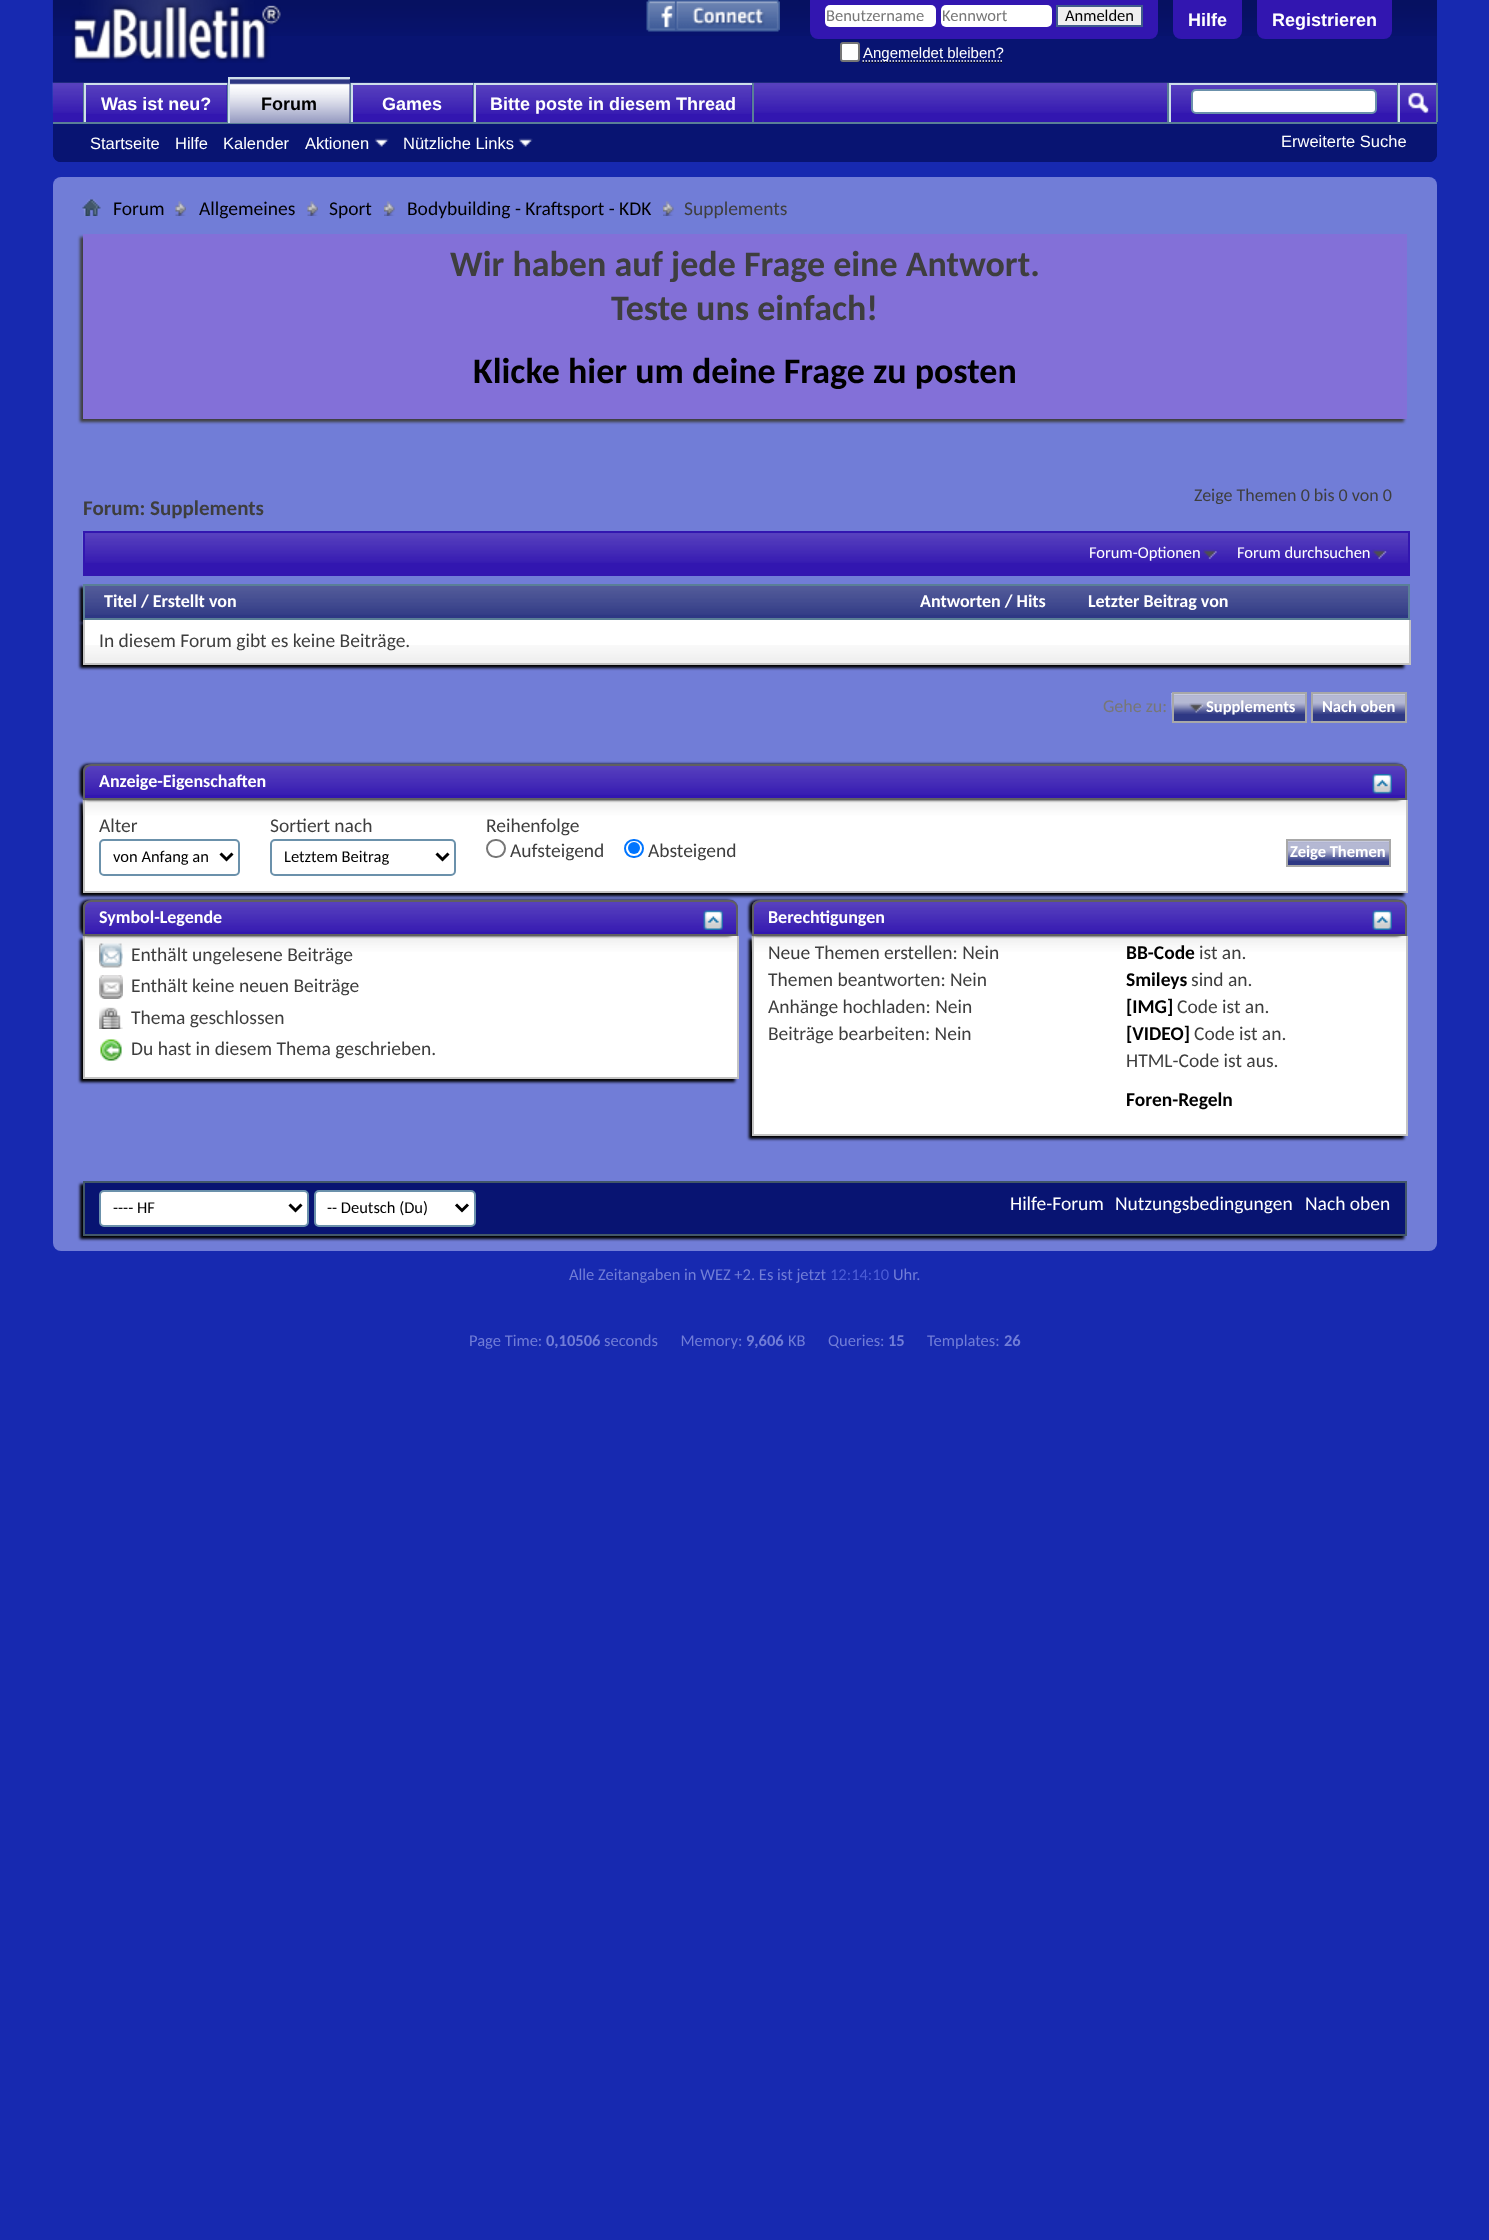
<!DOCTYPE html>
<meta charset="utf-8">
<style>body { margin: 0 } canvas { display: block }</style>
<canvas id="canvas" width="1489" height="2240"></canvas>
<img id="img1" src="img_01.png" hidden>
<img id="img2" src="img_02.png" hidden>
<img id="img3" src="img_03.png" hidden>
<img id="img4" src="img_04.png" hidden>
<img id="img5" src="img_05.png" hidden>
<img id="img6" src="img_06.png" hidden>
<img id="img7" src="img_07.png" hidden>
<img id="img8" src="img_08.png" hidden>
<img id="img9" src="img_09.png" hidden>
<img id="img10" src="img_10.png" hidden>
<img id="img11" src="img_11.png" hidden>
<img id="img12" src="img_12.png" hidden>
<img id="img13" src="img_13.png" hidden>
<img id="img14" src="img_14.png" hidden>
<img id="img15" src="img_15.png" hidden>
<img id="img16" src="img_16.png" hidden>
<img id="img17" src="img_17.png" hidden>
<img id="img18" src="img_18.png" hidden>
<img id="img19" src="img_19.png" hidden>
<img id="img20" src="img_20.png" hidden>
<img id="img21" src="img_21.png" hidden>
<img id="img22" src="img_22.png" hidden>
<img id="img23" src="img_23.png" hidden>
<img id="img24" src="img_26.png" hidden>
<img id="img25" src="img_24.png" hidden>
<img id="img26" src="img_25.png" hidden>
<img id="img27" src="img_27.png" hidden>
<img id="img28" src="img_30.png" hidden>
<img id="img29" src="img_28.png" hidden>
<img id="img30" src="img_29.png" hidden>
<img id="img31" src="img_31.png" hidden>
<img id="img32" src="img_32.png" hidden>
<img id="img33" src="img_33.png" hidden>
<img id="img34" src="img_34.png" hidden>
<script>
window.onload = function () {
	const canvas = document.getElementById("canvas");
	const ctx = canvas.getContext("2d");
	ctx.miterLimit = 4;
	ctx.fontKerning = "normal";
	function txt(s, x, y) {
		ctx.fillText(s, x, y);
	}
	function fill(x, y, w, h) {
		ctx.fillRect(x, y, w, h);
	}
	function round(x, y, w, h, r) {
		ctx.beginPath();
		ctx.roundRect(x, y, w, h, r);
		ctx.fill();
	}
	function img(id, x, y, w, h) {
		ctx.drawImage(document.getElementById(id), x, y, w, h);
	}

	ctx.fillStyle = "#1729B0";
	fill(0, 0, 1489, 2240);
	ctx.fillStyle = "#081472";
	ctx.beginPath();
	ctx.roundRect(53, 0, 1384, 162, [0, 0, 8, 8]);
	ctx.fill();
	img("img1", 52, 0, 1385, 36);
	img("img2", 70, 0, 211, 63);
	img("img3", 646, 0, 134, 32);
	ctx.fillStyle = "#3216B0";
	ctx.beginPath();
	ctx.roundRect(810, 0, 348, 39, [0, 0, 8, 8]);
	ctx.fill();
	ctx.fillStyle = "#FFFFFF";
	round(825, 5, 111, 22, 5);
	round(941, 5, 111, 22, 5);
	ctx.fillStyle = "#EFEFEF";
	ctx.beginPath();
	ctx.rect(1057, 6, 85, 20);
	ctx.fill();
	ctx.strokeStyle = "#415D8D";
	ctx.lineWidth = 2;
	ctx.stroke();
	ctx.fillStyle = "#FFFFFF";
	ctx.beginPath();
	ctx.roundRect(841, 43, 18, 18, 2);
	ctx.fill();
	ctx.strokeStyle = "#767676";
	ctx.stroke();
	ctx.beginPath();
	ctx.moveTo(862.5, 62);
	ctx.lineTo(1003.5, 62);
	ctx.strokeStyle = "#000000";
	ctx.lineWidth = 1.5;
	ctx.setLineDash([1.5, 1.5]);
	ctx.stroke();
	ctx.beginPath();
	ctx.moveTo(862.5, 61);
	ctx.lineTo(1003.5, 61);
	ctx.strokeStyle = "#FFFFFF";
	ctx.stroke();
	ctx.fillStyle = "#3216B0";
	ctx.beginPath();
	ctx.roundRect(1173, 0, 69, 39, [0, 0, 8, 8]);
	ctx.fill();
	ctx.beginPath();
	ctx.roundRect(1257, 0, 135, 39, [0, 0, 8, 8]);
	ctx.fill();
	ctx.fillStyle = "#081472";
	ctx.beginPath();
	ctx.roundRect(53, 83, 1384, 79, [0, 0, 8, 8]);
	ctx.fill();
	ctx.fillStyle = "#3216B0";
	fill(53, 83, 1383, 39);
	img("img4", 52, 82, 1385, 31);
	ctx.fillStyle = "#5A7F97";
	fill(227, 83, 1, 40);
	fill(83, 83, 1, 40);
	ctx.fillStyle = "#3216B0";
	fill(86, 85, 141, 28);
	img("img5", 86, 85, 141, 29);
	ctx.fillStyle = "#CEDFEB";
	fill(84, 83, 143, 2);
	fill(84, 83, 2, 40);
	ctx.fillStyle = "#5A7F97";
	fill(350, 83, 1, 39);
	fill(473, 83, 1, 40);
	ctx.fillStyle = "#CEDFEB";
	fill(351, 83, 122, 2);
	fill(351, 83, 2, 40);
	ctx.fillStyle = "#5A7F97";
	fill(752, 83, 2, 40);
	ctx.fillStyle = "#CEDFEB";
	fill(474, 83, 278, 2);
	fill(474, 83, 2, 40);
	ctx.fillStyle = "#5A7F97";
	fill(53, 122, 1384, 2);
	ctx.fillStyle = "#2E3884";
	fill(230, 79, 120, 44);
	img("img6", 230, 79, 120, 44);
	ctx.fillStyle = "#CEDFEB";
	fill(228, 77, 122, 2);
	fill(228, 77, 2, 46);
	ctx.fillStyle = "#3216B0";
	fill(353, 85, 120, 28);
	img("img7", 353, 85, 120, 29);
	fill(476, 85, 276, 28);
	img("img8", 476, 85, 276, 29);
	img("img9", 374, 138, 15, 9);
	img("img10", 518, 138, 15, 9);
	ctx.fillStyle = "#5A7F97";
	fill(1167, 83, 2, 39);
	ctx.fillStyle = "#CEDFEB";
	fill(1169, 83, 228, 2);
	fill(1169, 83, 2, 39);
	ctx.fillStyle = "#FFFFFF";
	ctx.beginPath();
	ctx.roundRect(1192, 90, 184, 23, 4);
	ctx.fill();
	ctx.strokeStyle = "#6B91AB";
	ctx.lineWidth = 2;
	ctx.setLineDash([]);
	ctx.stroke();
	ctx.fillStyle = "#5A7F97";
	fill(1436, 83, 2, 39);
	fill(1397, 83, 1, 39);
	ctx.fillStyle = "#CEDFEB";
	fill(1398, 83, 38, 2);
	fill(1398, 83, 2, 39);
	img("img11", 1408, 92, 21, 22);
	ctx.fillStyle = "#717DD7";
	round(53, 177, 1384, 1074, 8);
	img("img12", 82, 199, 19, 17);
	img("img13", 175, 201, 11, 15);
	img("img13", 307, 201, 11, 15);
	img("img14", 384, 201, 11, 15);
	img("img15", 663, 201, 11, 15);
	ctx.fillStyle = "#3E3E3E";
	ctx.filter = "blur(1.5px)";
	ctx.beginPath();
	ctx.rect(80, 237, 1324, 185);
	ctx.fill();
	ctx.filter = "none";
	ctx.fillStyle = "#8370D8";
	fill(83, 234, 1324, 185);
	ctx.fillStyle = "#3216B0";
	fill(85, 533, 1323, 41);
	img("img16", 82, 532, 1326, 31);
	ctx.strokeStyle = "#3216B0";
	ctx.strokeRect(84, 532, 1325, 43);
	img("img17", 1203, 549, 14, 11);
	img("img18", 1372, 549, 15, 11);
	ctx.fillStyle = "#000000";
	ctx.filter = "blur(1.5px)";
	ctx.beginPath();
	ctx.rect(80, 587, 1327, 36);
	ctx.fill();
	ctx.filter = "none";
	ctx.fillStyle = "#2E3884";
	fill(85, 586, 1323, 32);
	img("img19", 82, 585, 1326, 30);
	ctx.strokeStyle = "#5A7F97";
	ctx.strokeRect(84, 585, 1325, 34);
	ctx.fillStyle = "#000000";
	ctx.filter = "blur(1.5px)";
	ctx.beginPath();
	ctx.rect(80, 623, 1324, 45);
	ctx.fill();
	ctx.filter = "none";
	ctx.fillStyle = "#FFFFFF";
	fill(85, 620, 1324, 43);
	img("img20", 85, 645, 1324, 18);
	ctx.fillStyle = "#C4C4C4";
	fill(1409, 620, 2, 45);
	fill(83, 663, 1327, 2);
	fill(83, 620, 2, 45);
	ctx.fillStyle = "#2E3884";
	fill(1174, 694, 131, 27);
	img("img21", 1171, 693, 134, 21);
	fill(1313, 694, 92, 27);
	img("img22", 1313, 694, 92, 20);
	ctx.strokeStyle = "#A8A8A8";
	ctx.strokeRect(1173, 693, 133, 29);
	img("img23", 1189, 703, 15, 10);
	ctx.strokeRect(1312, 693, 94, 29);
	ctx.fillStyle = "#000000";
	ctx.filter = "blur(1.5px)";
	ctx.beginPath();
	ctx.rect(80, 803, 1324, 93);
	ctx.fill();
	ctx.filter = "none";
	ctx.fillStyle = "#FFFFFF";
	fill(85, 800, 1321, 91);
	img("img24", 82, 799, 1324, 17);
	ctx.fillStyle = "#C4C4C4";
	fill(1406, 800, 2, 93);
	fill(83, 891, 1324, 2);
	fill(83, 800, 2, 93);
	ctx.fillStyle = "#000000";
	ctx.filter = "blur(1.5px)";
	ctx.beginPath();
	ctx.roundRect(80, 764, 1324, 36, 8);
	ctx.fill();
	ctx.filter = "none";
	ctx.fillStyle = "#3216B0";
	ctx.beginPath();
	ctx.roundRect(83, 764, 1324, 36, [8, 8, 0, 0]);
	ctx.fill();
	img("img25", 82, 765, 1325, 30);
	ctx.beginPath();
	ctx.roundRect(84, 765, 1322, 34, [7, 7, 0, 0]);
	ctx.strokeStyle = "#606060";
	ctx.stroke();
	img("img26", 1372, 774, 20, 20);
	ctx.beginPath();
	ctx.roundRect(100, 840, 139, 35, 4);
	ctx.strokeStyle = "#6B91AB";
	ctx.stroke();
	ctx.beginPath();
	ctx.moveTo(220.5, 853.5);
	ctx.lineTo(226.5, 859.5);
	ctx.lineTo(232.5, 853.5);
	ctx.strokeStyle = "#000000";
	ctx.lineWidth = 3;
	ctx.stroke();
	ctx.beginPath();
	ctx.roundRect(271, 840, 184, 35, 4);
	ctx.strokeStyle = "#6B91AB";
	ctx.lineWidth = 2;
	ctx.stroke();
	ctx.beginPath();
	ctx.moveTo(436.5, 853.5);
	ctx.lineTo(442.5, 859.5);
	ctx.lineTo(448.5, 853.5);
	ctx.strokeStyle = "#000000";
	ctx.lineWidth = 3;
	ctx.stroke();
	ctx.beginPath();
	ctx.roundRect(487, 840, 18, 17, 8.5);
	ctx.strokeStyle = "#767676";
	ctx.lineWidth = 2;
	ctx.stroke();
	ctx.beginPath();
	ctx.roundRect(625, 840, 18, 17, 8.5);
	ctx.strokeStyle = "#0075FF";
	ctx.stroke();
	ctx.fillStyle = "#0075FF";
	ctx.beginPath();
	ctx.arc(634, 848, 6, 0, Math.PI * 2);
	ctx.fill();
	ctx.fillStyle = "#2E3884";
	fill(1288, 841, 101, 24);
	img("img27", 1288, 841, 101, 20);
	ctx.strokeStyle = "#A8A8A8";
	ctx.strokeRect(1287, 840, 103, 26);
	ctx.fillStyle = "#000000";
	ctx.filter = "blur(1.5px)";
	ctx.beginPath();
	ctx.rect(80, 939, 655, 143);
	ctx.fill();
	ctx.filter = "none";
	ctx.fillStyle = "#FFFFFF";
	fill(85, 936, 652, 141);
	img("img28", 82, 936, 655, 16);
	ctx.fillStyle = "#C4C4C4";
	fill(737, 936, 2, 143);
	fill(83, 1077, 655, 2);
	fill(83, 936, 2, 143);
	ctx.fillStyle = "#000000";
	ctx.filter = "blur(1.5px)";
	ctx.beginPath();
	ctx.roundRect(80, 900, 655, 36, 8);
	ctx.fill();
	ctx.filter = "none";
	ctx.fillStyle = "#3216B0";
	ctx.beginPath();
	ctx.roundRect(83, 900, 655, 36, [8, 8, 0, 0]);
	ctx.fill();
	img("img29", 82, 901, 656, 31);
	ctx.beginPath();
	ctx.roundRect(84, 901, 653, 34, [7, 7, 0, 0]);
	ctx.strokeStyle = "#606060";
	ctx.stroke();
	img("img30", 703, 910, 20, 20);
	img("img31", 99, 943, 24, 25);
	img("img32", 99, 975, 24, 24);
	img("img33", 99, 1007, 24, 22);
	img("img34", 100, 1039, 22, 22);
	ctx.fillStyle = "#000000";
	ctx.filter = "blur(1.5px)";
	ctx.beginPath();
	ctx.rect(749, 939, 655, 200);
	ctx.fill();
	ctx.filter = "none";
	ctx.fillStyle = "#FFFFFF";
	fill(754, 936, 652, 198);
	img("img28", 751, 936, 655, 16);
	ctx.fillStyle = "#C4C4C4";
	fill(1406, 936, 2, 200);
	fill(752, 1134, 655, 2);
	fill(752, 936, 2, 200);
	ctx.fillStyle = "#000000";
	ctx.filter = "blur(1.5px)";
	ctx.beginPath();
	ctx.roundRect(749, 900, 655, 36, 8);
	ctx.fill();
	ctx.filter = "none";
	ctx.fillStyle = "#3216B0";
	ctx.beginPath();
	ctx.roundRect(752, 900, 655, 36, [8, 8, 0, 0]);
	ctx.fill();
	img("img29", 751, 901, 656, 31);
	ctx.beginPath();
	ctx.roundRect(753, 901, 653, 34, [7, 7, 0, 0]);
	ctx.stroke();
	img("img30", 1372, 910, 20, 20);
	ctx.fillStyle = "#000000";
	ctx.filter = "blur(1.5px)";
	ctx.beginPath();
	ctx.rect(80, 1184, 1324, 55);
	ctx.fill();
	ctx.filter = "none";
	ctx.fillStyle = "#081472";
	ctx.beginPath();
	ctx.rect(84, 1182, 1322, 53);
	ctx.fill();
	ctx.strokeStyle = "#425769";
	ctx.stroke();
	ctx.fillStyle = "#FFFFFF";
	ctx.beginPath();
	ctx.roundRect(100, 1191, 208, 35, 4);
	ctx.fill();
	ctx.strokeStyle = "#6B91AB";
	ctx.stroke();
	ctx.beginPath();
	ctx.moveTo(289.5, 1204.5);
	ctx.lineTo(295.5, 1210.5);
	ctx.lineTo(301.5, 1204.5);
	ctx.strokeStyle = "#000000";
	ctx.lineWidth = 3;
	ctx.stroke();
	ctx.beginPath();
	ctx.roundRect(315, 1191, 160, 35, 4);
	ctx.fill();
	ctx.strokeStyle = "#6B91AB";
	ctx.lineWidth = 2;
	ctx.stroke();
	ctx.beginPath();
	ctx.moveTo(456, 1204.5);
	ctx.lineTo(462, 1210.5);
	ctx.lineTo(468, 1204.5);
	ctx.strokeStyle = "#000000";
	ctx.lineWidth = 3;
	ctx.stroke();
	ctx.font = "16.5px Carlito";
	ctx.fillStyle = "#777777";
	txt("Benutzername", 826, 21);
	txt("Kennwort", 942, 21);
	ctx.fillStyle = "#000000";
	txt("Anmelden", 1065, 21);
	ctx.font = "15px Liberation Sans";
	ctx.fillStyle = "#FFFFFF";
	txt("Angemeldet bleiben?", 863, 58);
	ctx.font = "bold 18px Liberation Sans";
	txt("Hilfe", 1188, 26);
	txt("Registrieren", 1272, 26);
	txt("Was ist neu?", 101, 110);
	ctx.fillStyle = "#000000";
	txt("Forum", 261, 110);
	ctx.fillStyle = "#FFFFFF";
	txt("Games", 382, 110);
	txt("Bitte poste in diesem Thread", 490, 110);
	ctx.font = "16.5px Liberation Sans";
	txt("Startseite", 90, 149);
	txt("Hilfe", 175, 149);
	txt("Kalender", 223, 149);
	txt("Aktionen", 305, 149);
	txt("Nützliche Links", 403, 149);
	txt("Erweiterte Suche", 1281, 147);
	ctx.font = "19.5px Carlito";
	ctx.fillStyle = "#000000";
	txt("Forum", 113, 215);
	txt("Allgemeines", 199, 215);
	txt("Sport", 329, 215);
	txt("Bodybuilding - Kraftsport - KDK", 407, 215);
	ctx.fillStyle = "#3E3E3E";
	txt("Supplements", 684, 215);
	ctx.font = "bold 36px Carlito";
	txt("Wir haben auf jede Frage eine Antwort.", 450, 276);
	txt("Teste uns einfach!", 611, 320);
	ctx.fillStyle = "#000000";
	txt("Klicke hier um deine Frage zu posten", 473, 383);
	ctx.font = "18px Carlito";
	ctx.fillStyle = "#3E3E3E";
	txt("Zeige Themen 0 bis 0 von 0", 1194, 501);
	ctx.font = "bold 21px Carlito";
	txt("Forum: Supplements", 83, 515);
	ctx.font = "16.5px Carlito";
	ctx.fillStyle = "#FFFFFF";
	txt("Forum-Optionen", 1089, 558);
	txt("Forum durchsuchen", 1237, 558);
	ctx.font = "bold 18px Carlito";
	txt("Titel / Erstellt von", 104, 607);
	txt("Antworten / Hits", 920, 607);
	txt("Letzter Beitrag von", 1088, 607);
	ctx.font = "19.5px Carlito";
	ctx.fillStyle = "#3E3E3E";
	txt("In diesem Forum gibt es keine Beiträge.", 99, 647);
	ctx.font = "18px Carlito";
	ctx.fillStyle = "#777777";
	txt("Gehe zu:", 1103, 712);
	ctx.font = "bold 16.5px Carlito";
	ctx.fillStyle = "#FFFFFF";
	txt("Supplements", 1206, 712);
	txt("Nach oben", 1322, 712);
	ctx.font = "bold 18px Carlito";
	txt("Anzeige-Eigenschaften", 99, 787);
	ctx.font = "19.5px Carlito";
	ctx.fillStyle = "#3E3E3E";
	txt("Alter", 99, 832);
	ctx.font = "16.5px Carlito";
	ctx.fillStyle = "#000000";
	txt("von Anfang an", 113, 862);
	ctx.font = "19.5px Carlito";
	ctx.fillStyle = "#3E3E3E";
	txt("Sortiert nach", 270, 832);
	ctx.font = "16.5px Carlito";
	ctx.fillStyle = "#000000";
	txt("Letztem Beitrag", 284, 862);
	ctx.font = "19.5px Carlito";
	ctx.fillStyle = "#3E3E3E";
	txt("Reihenfolge", 486, 832);
	txt("Aufsteigend", 510, 857);
	txt("Absteigend", 648, 857);
	ctx.font = "bold 16.5px Carlito";
	ctx.fillStyle = "#FFFFFF";
	txt("Zeige Themen", 1290, 857);
	ctx.font = "bold 18px Carlito";
	txt("Symbol-Legende", 99, 923);
	ctx.font = "19.5px Carlito";
	ctx.fillStyle = "#3E3E3E";
	txt("Enthält ungelesene Beiträge", 131, 961);
	txt("Enthält keine neuen Beiträge", 131, 992);
	txt("Thema geschlossen", 131, 1024);
	txt("Du hast in diesem Thema geschrieben.", 131, 1055);
	ctx.font = "bold 18px Carlito";
	ctx.fillStyle = "#FFFFFF";
	txt("Berechtigungen", 768, 923);
	ctx.font = "19.5px Carlito";
	ctx.fillStyle = "#3E3E3E";
	txt("Neue Themen erstellen: Nein", 768, 959);
	txt("Themen beantworten: Nein", 768, 986);
	txt("Anhänge hochladen: Nein", 768, 1013);
	txt("Beiträge bearbeiten: Nein", 768, 1040);
	ctx.font = "bold 19.5px Carlito";
	ctx.fillStyle = "#000000";
	txt("BB-Code", 1126, 959);
	ctx.font = "19.5px Carlito";
	ctx.fillStyle = "#3E3E3E";
	txt("ist an.", 1199, 959);
	ctx.font = "bold 19.5px Carlito";
	ctx.fillStyle = "#000000";
	txt("Smileys", 1126, 986);
	ctx.font = "19.5px Carlito";
	ctx.fillStyle = "#3E3E3E";
	txt("sind an.", 1191, 986);
	ctx.font = "bold 19.5px Carlito";
	ctx.fillStyle = "#000000";
	txt("[IMG]", 1126, 1013);
	ctx.font = "19.5px Carlito";
	ctx.fillStyle = "#3E3E3E";
	txt("Code ist an.", 1177, 1013);
	ctx.font = "bold 19.5px Carlito";
	ctx.fillStyle = "#000000";
	txt("[VIDEO]", 1126, 1040);
	ctx.font = "19.5px Carlito";
	ctx.fillStyle = "#3E3E3E";
	txt("Code ist an.", 1194, 1040);
	txt("HTML-Code ist aus.", 1126, 1067);
	ctx.font = "bold 19.5px Carlito";
	ctx.fillStyle = "#000000";
	txt("Foren-Regeln", 1126, 1106);
	ctx.font = "16.5px Carlito";
	txt("---- HF", 113, 1213);
	txt("-- Deutsch (Du)", 327, 1213);
	ctx.font = "19.5px Carlito";
	ctx.fillStyle = "#FFFFFF";
	txt("Hilfe-Forum", 1010, 1210);
	txt("Nutzungsbedingungen", 1115, 1210);
	txt("Nach oben", 1305, 1210);
	ctx.font = "16.5px Carlito";
	ctx.fillStyle = "#717DD7";
	txt("Alle Zeitangaben in WEZ +2. Es ist jetzt", 569, 1280);
	ctx.fillStyle = "#4B5CD7";
	txt("12:14:10", 830, 1280);
	ctx.fillStyle = "#717DD7";
	txt("Uhr.", 893, 1280);
	txt("Page Time:", 469, 1346);
	ctx.font = "bold 16.5px Carlito";
	txt("0,10506", 546, 1346);
	ctx.font = "16.5px Carlito";
	txt("seconds      Memory:", 604, 1346);
	ctx.font = "bold 16.5px Carlito";
	txt("9,606", 746, 1346);
	ctx.font = "16.5px Carlito";
	txt("KB      Queries:", 788, 1346);
	ctx.font = "bold 16.5px Carlito";
	txt("15", 888, 1346);
	ctx.font = "16.5px Carlito";
	txt("Templates:", 927, 1346);
	ctx.font = "bold 16.5px Carlito";
	txt("26", 1004, 1346);
};
</script>
